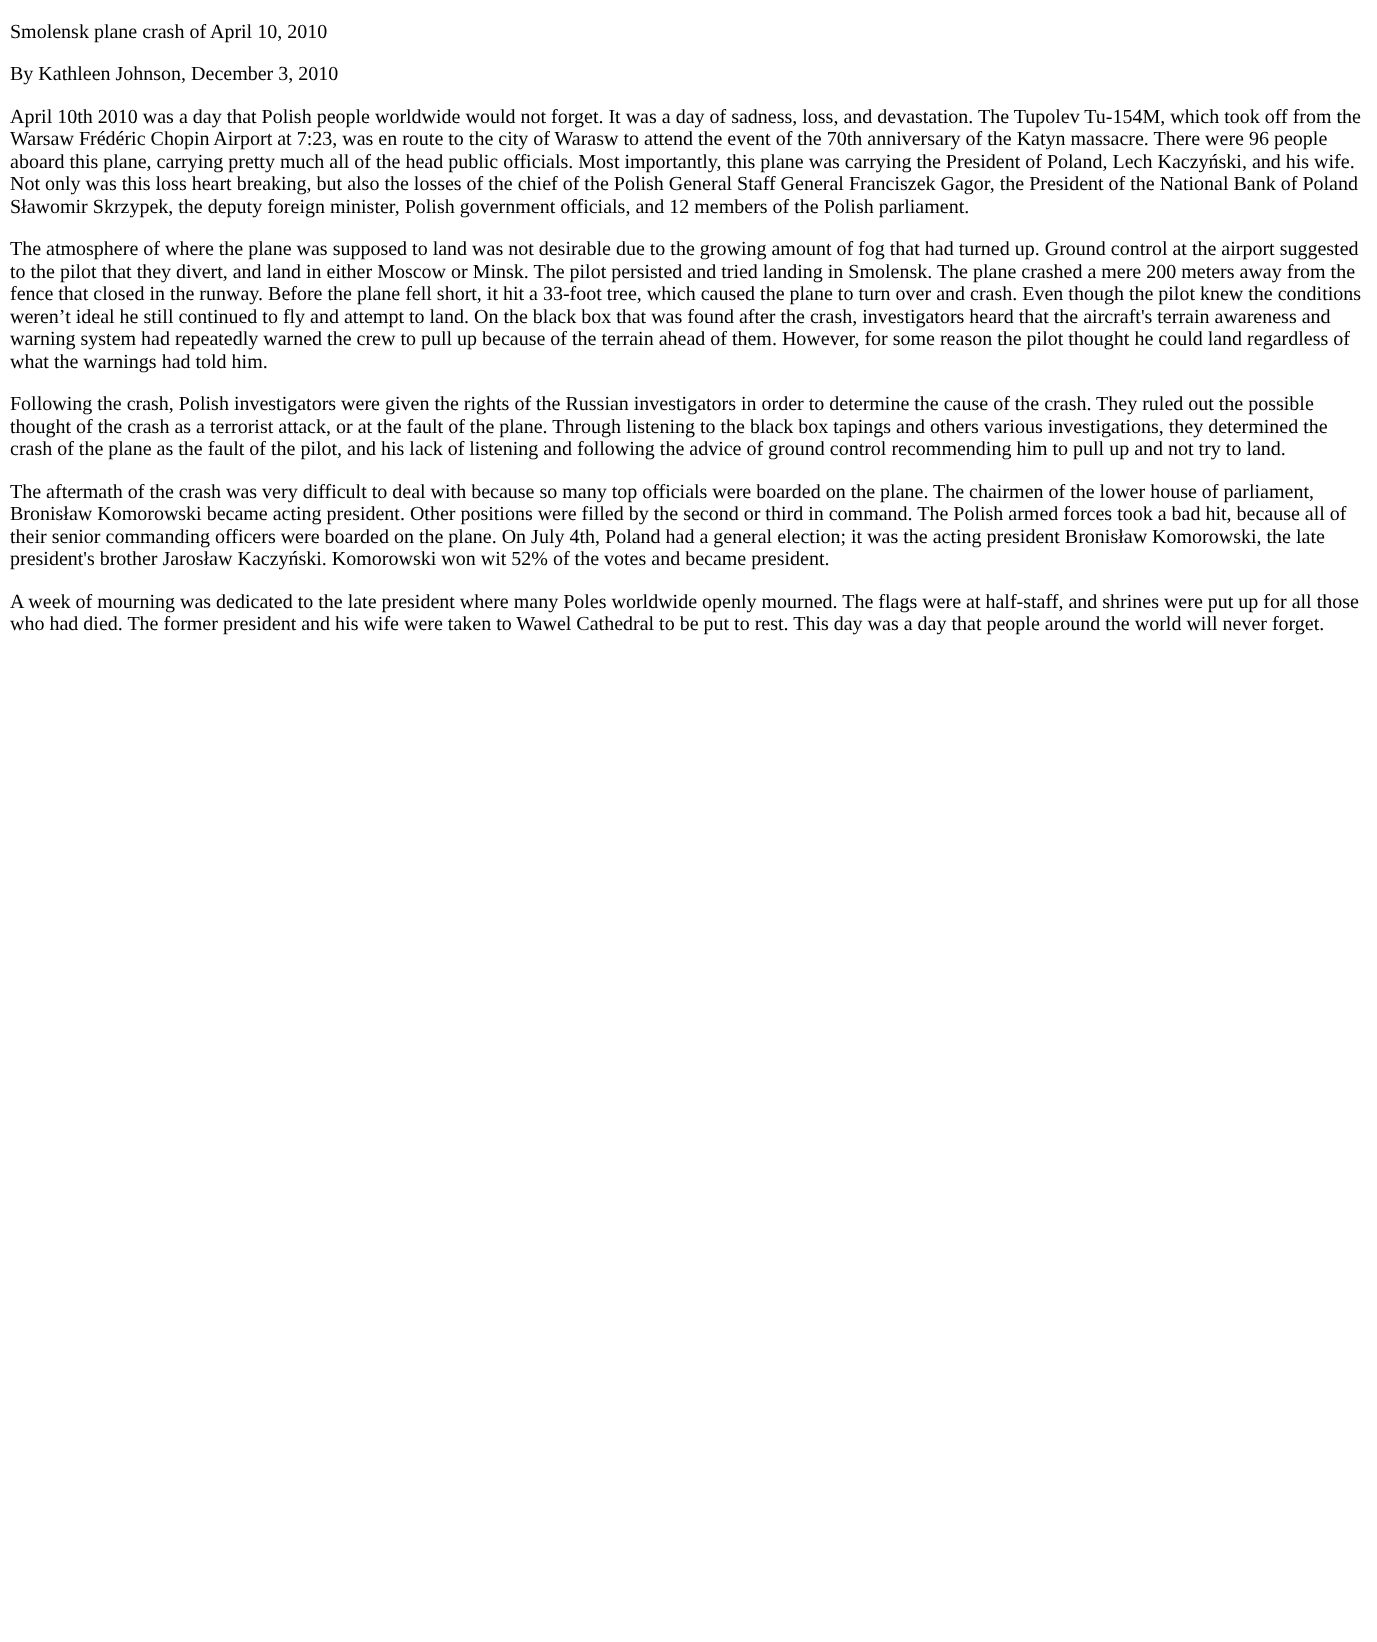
<!DOCTYPE html>
<meta charset="utf-8">
<style>body { margin: 0 } canvas { display: block }</style>
<canvas id="canvas" width="1377" height="1642"></canvas>
<script>
window.onload = function () {
	const canvas = document.getElementById("canvas");
	const ctx = canvas.getContext("2d");
	ctx.miterLimit = 4;
	ctx.fontKerning = "normal";
	function txt(s, x, y) {
		ctx.fillText(s, x, y);
	}
	function fill(x, y, w, h) {
		ctx.fillRect(x, y, w, h);
	}

	ctx.fillStyle = "#FFFFFF";
	fill(0, 0, 1377, 1642);
	ctx.font = "20px Liberation Serif";
	ctx.fillStyle = "#000000";
	txt("Smolensk plane crash of April 10, 2010", 10, 38);
	txt("By Kathleen Johnson, December 3, 2010", 10, 80);
	txt("April 10th 2010 was a day that Polish people worldwide would not forget. It was a day of sadness, loss, and devastation. The Tupolev Tu-154M, which took off from the", 10, 123);
	txt("Warsaw Frédéric Chopin Airport at 7:23, was en route to the city of Warasw to attend the event of the 70th anniversary of the Katyn massacre. There were 96 people", 10, 145);
	txt("aboard this plane, carrying pretty much all of the head public officials. Most importantly, this plane was carrying the President of Poland, Lech Kaczyński, and his wife.", 10, 168);
	txt("Not only was this loss heart breaking, but also the losses of the chief of the Polish General Staff General Franciszek Gagor, the President of the National Bank of Poland", 10, 190);
	txt("Sławomir Skrzypek, the deputy foreign minister, Polish government officials, and 12 members of the Polish parliament.", 10, 213);
	txt("The atmosphere of where the plane was supposed to land was not desirable due to the growing amount of fog that had turned up. Ground control at the airport suggested", 10, 255);
	txt("to the pilot that they divert, and land in either Moscow or Minsk. The pilot persisted and tried landing in Smolensk. The plane crashed a mere 200 meters away from the", 10, 278);
	txt("fence that closed in the runway. Before the plane fell short, it hit a 33-foot tree, which caused the plane to turn over and crash. Even though the pilot knew the conditions", 10, 300);
	txt("weren’t ideal he still continued to fly and attempt to land. On the black box that was found after the crash, investigators heard that the aircraft's terrain awareness and", 10, 323);
	txt("warning system had repeatedly warned the crew to pull up because of the terrain ahead of them. However, for some reason the pilot thought he could land regardless of", 10, 345);
	txt("what the warnings had told him.", 10, 368);
	txt("Following the crash, Polish investigators were given the rights of the Russian investigators in order to determine the cause of the crash. They ruled out the possible", 10, 410);
	txt("thought of the crash as a terrorist attack, or at the fault of the plane. Through listening to the black box tapings and others various investigations, they determined the", 10, 433);
	txt("crash of the plane as the fault of the pilot, and his lack of listening and following the advice of ground control recommending him to pull up and not try to land.", 10, 455);
	txt("The aftermath of the crash was very difficult to deal with because so many top officials were boarded on the plane. The chairmen of the lower house of parliament,", 10, 498);
	txt("Bronisław Komorowski became acting president. Other positions were filled by the second or third in command. The Polish armed forces took a bad hit, because all of", 10, 520);
	txt("their senior commanding officers were boarded on the plane. On July 4th, Poland had a general election; it was the acting president Bronisław Komorowski, the late", 10, 543);
	txt("president's brother Jarosław Kaczyński. Komorowski won wit 52% of the votes and became president.", 10, 565);
	txt("A week of mourning was dedicated to the late president where many Poles worldwide openly mourned. The flags were at half-staff, and shrines were put up for all those", 10, 608);
	txt("who had died. The former president and his wife were taken to Wawel Cathedral to be put to rest. This day was a day that people around the world will never forget.", 10, 630);
};
</script>
